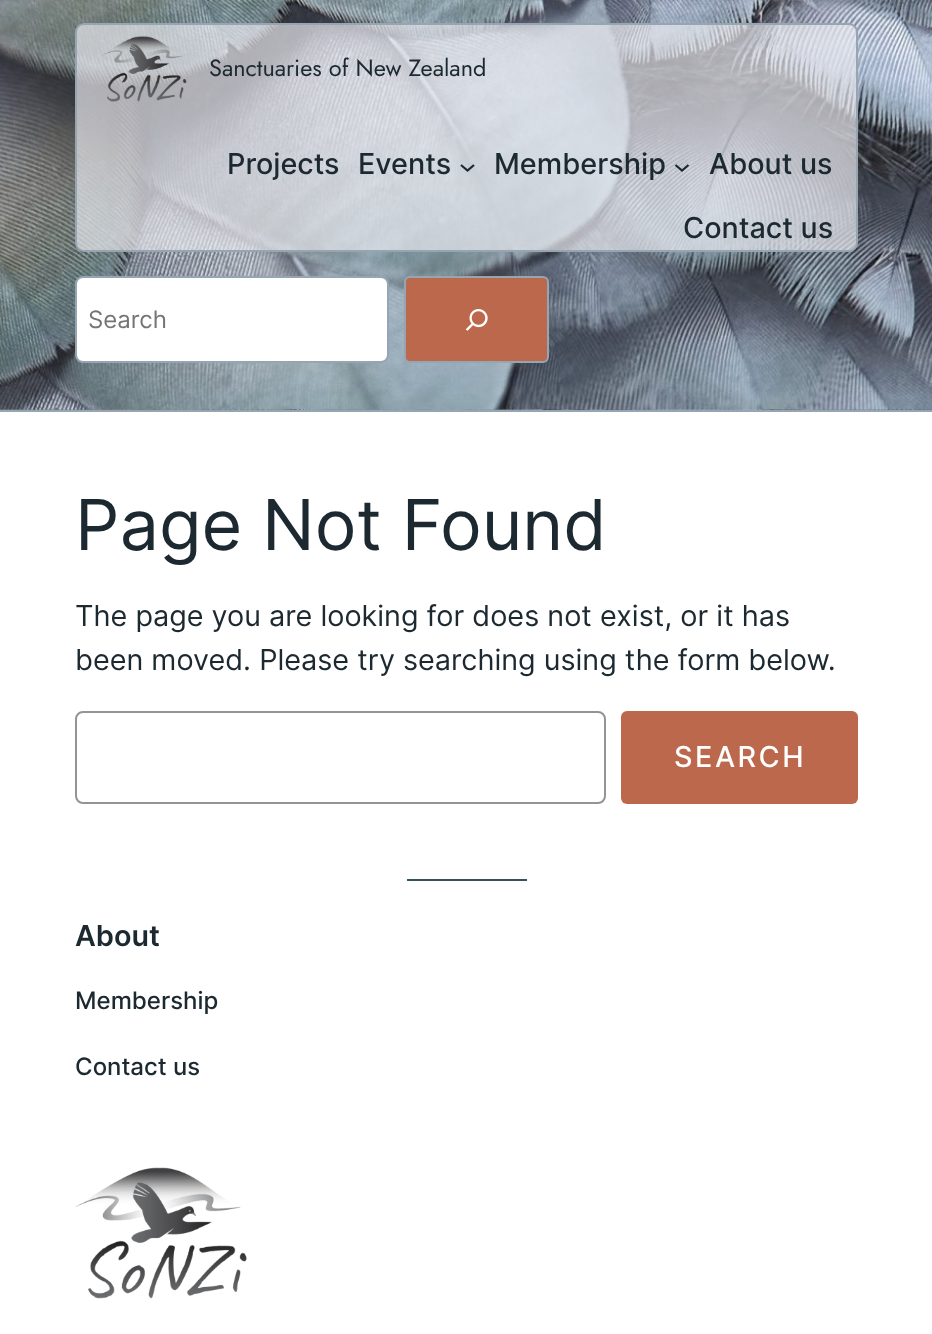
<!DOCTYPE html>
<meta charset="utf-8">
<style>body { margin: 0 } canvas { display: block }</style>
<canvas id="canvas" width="932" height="1334"></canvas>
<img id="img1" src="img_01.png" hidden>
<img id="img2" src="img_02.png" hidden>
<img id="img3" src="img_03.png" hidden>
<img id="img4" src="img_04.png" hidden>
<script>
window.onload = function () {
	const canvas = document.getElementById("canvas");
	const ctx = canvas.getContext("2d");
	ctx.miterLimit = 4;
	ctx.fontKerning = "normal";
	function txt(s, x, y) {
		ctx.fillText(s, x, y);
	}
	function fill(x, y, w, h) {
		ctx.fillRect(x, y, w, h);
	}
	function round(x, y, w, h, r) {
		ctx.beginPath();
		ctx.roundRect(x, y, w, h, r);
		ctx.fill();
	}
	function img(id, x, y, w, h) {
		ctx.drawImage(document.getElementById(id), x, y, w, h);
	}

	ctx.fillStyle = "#FFFFFF";
	fill(0, 0, 932, 1334);
	img("img1", 0, 0, 932, 410);
	ctx.fillStyle = "#96A5B2";
	fill(0, 410, 932, 2);
	ctx.fillStyle = "rgba(235, 235, 240, 0.69)";
	ctx.beginPath();
	ctx.roundRect(76, 24, 781, 227, 8);
	ctx.fill();
	ctx.strokeStyle = "#96A5B2";
	ctx.lineWidth = 2;
	ctx.stroke();
	img("img2", 101, 36, 86, 66);
	ctx.beginPath();
	ctx.moveTo(461, 165);
	ctx.lineTo(467.5, 170.5);
	ctx.lineTo(474, 165);
	ctx.strokeStyle = "#1C2930";
	ctx.lineWidth = 2.2;
	ctx.stroke();
	ctx.beginPath();
	ctx.moveTo(675.5, 165);
	ctx.lineTo(682, 170.5);
	ctx.lineTo(688.5, 165);
	ctx.stroke();
	ctx.fillStyle = "#FFFFFF";
	ctx.beginPath();
	ctx.roundRect(76, 277, 312, 85, 7);
	ctx.fill();
	ctx.strokeStyle = "#96A5B2";
	ctx.lineWidth = 2;
	ctx.stroke();
	ctx.fillStyle = "#BC684C";
	ctx.beginPath();
	ctx.roundRect(405, 277, 143, 85, 5);
	ctx.fill();
	ctx.stroke();
	img("img3", 465, 309, 23, 22);
	ctx.beginPath();
	ctx.roundRect(76, 712, 529, 91, 7);
	ctx.strokeStyle = "#949494";
	ctx.stroke();
	round(621, 711, 237, 93, 6);
	ctx.fillStyle = "#37505D";
	fill(407, 879, 120, 2);
	img("img4", 75, 1167, 172, 132);
	ctx.font = "23.5px Jost";
	ctx.fillStyle = "#1C2930";
	txt("Sanctuaries of New Zealand", 209, 76);
	ctx.font = "500 28.8px Inter";
	txt("Projects", 227, 174);
	txt("Events", 358, 174);
	txt("Membership", 494, 174);
	txt("About us", 709, 174);
	txt("Contact us", 683, 238);
	ctx.font = "24px Inter";
	ctx.fillStyle = "#757575";
	txt("Search", 88, 328);
	ctx.font = "70px Inter";
	ctx.fillStyle = "#1C2930";
	txt("Page Not Found", 75, 550);
	ctx.font = "28.8px Inter";
	txt("The page you are looking for does not exist, or it has", 75, 626);
	txt("been moved. Please try searching using the form below.", 75, 670);
	ctx.letterSpacing = "2.5px";
	ctx.font = "500 28.8px Inter";
	ctx.fillStyle = "#FFFFFF";
	txt("SEARCH", 674, 767);
	ctx.letterSpacing = "0px";
	ctx.font = "600 28.8px Inter";
	ctx.fillStyle = "#1C2930";
	txt("About", 75, 946);
	ctx.font = "500 24px Inter";
	txt("Membership", 75, 1009);
	txt("Contact us", 75, 1075);
};
</script>
